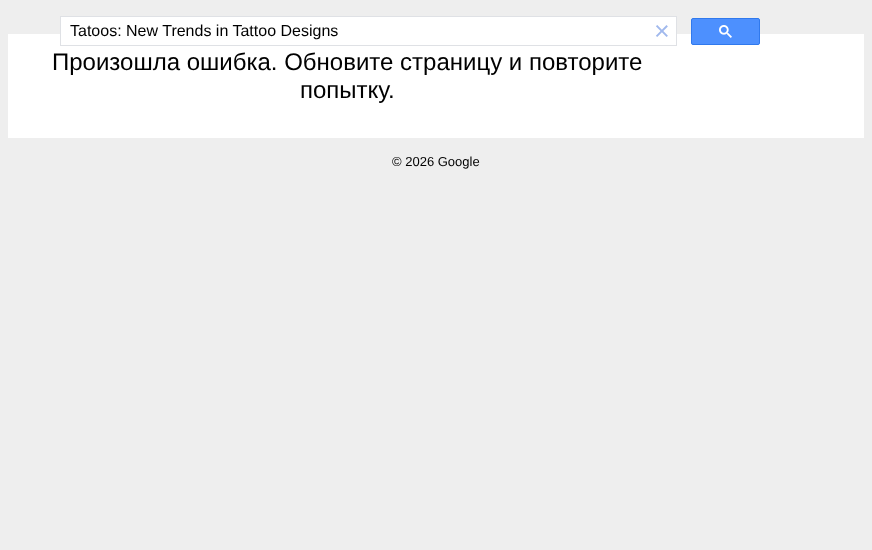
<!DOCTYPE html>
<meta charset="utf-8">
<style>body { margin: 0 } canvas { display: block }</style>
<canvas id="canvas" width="872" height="550"></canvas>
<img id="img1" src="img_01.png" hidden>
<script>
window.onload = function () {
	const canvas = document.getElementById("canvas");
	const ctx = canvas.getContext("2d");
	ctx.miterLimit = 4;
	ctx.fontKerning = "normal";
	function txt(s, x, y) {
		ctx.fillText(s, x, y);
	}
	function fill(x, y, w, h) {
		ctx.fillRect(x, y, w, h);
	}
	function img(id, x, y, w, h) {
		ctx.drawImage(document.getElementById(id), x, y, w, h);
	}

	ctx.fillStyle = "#EEEEEE";
	fill(0, 0, 872, 550);
	ctx.fillStyle = "#FFFFFF";
	fill(61, 17, 615, 17);
	fill(8, 34, 856, 104);
	ctx.strokeStyle = "#DFE1E5";
	ctx.strokeRect(60.5, 16.5, 616, 29);
	ctx.fillStyle = "#4D90FE";
	ctx.beginPath();
	ctx.roundRect(691.5, 18.5, 68, 26, 1.5);
	ctx.fill();
	ctx.strokeStyle = "#3079ED";
	ctx.stroke();
	img("img1", 719, 25, 13, 13);
	ctx.font = "16px Liberation Sans";
	ctx.fillStyle = "#000000";
	txt("Tatoos: New Trends in Tattoo Designs", 70, 36);
	ctx.font = "27px Liberation Sans";
	ctx.fillStyle = "#A1B9ED";
	txt("×", 654, 40);
	ctx.font = "24px Liberation Sans";
	ctx.fillStyle = "#000000";
	txt("Произошла ошибка. Обновите страницу и повторите", 52, 70);
	txt("попытку.", 300, 98);
	ctx.font = "13px Liberation Sans";
	txt("© 2026 Google", 392, 166);
};
</script>
